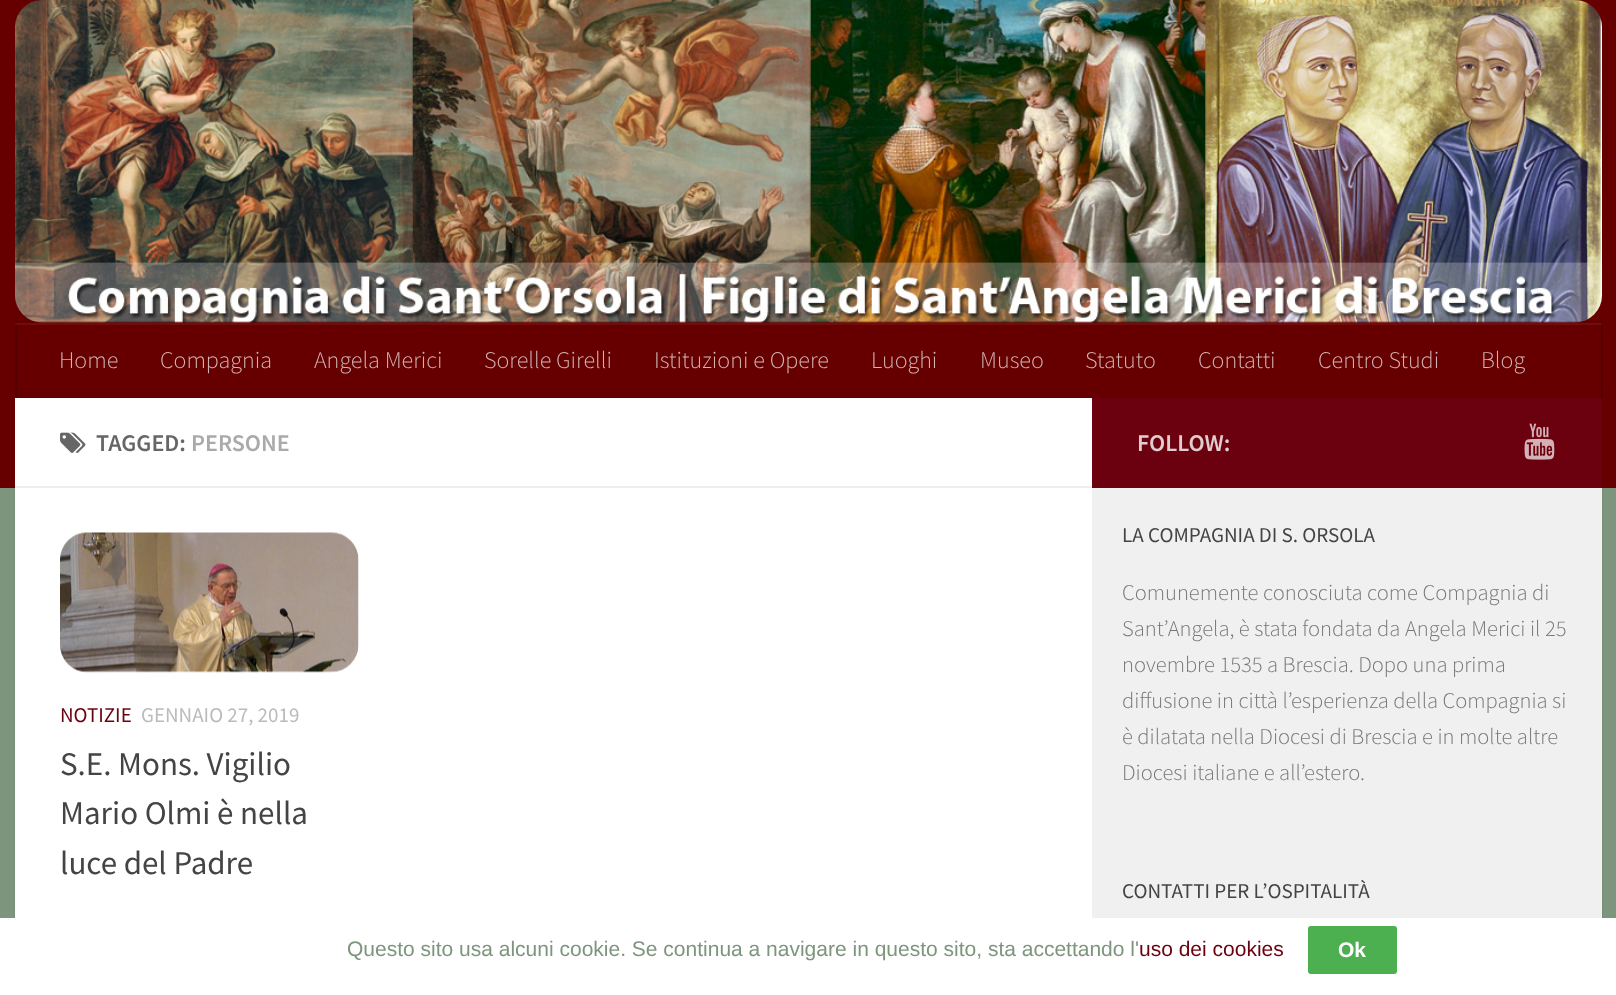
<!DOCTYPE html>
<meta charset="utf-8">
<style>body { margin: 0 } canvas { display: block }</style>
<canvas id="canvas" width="1616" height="995"></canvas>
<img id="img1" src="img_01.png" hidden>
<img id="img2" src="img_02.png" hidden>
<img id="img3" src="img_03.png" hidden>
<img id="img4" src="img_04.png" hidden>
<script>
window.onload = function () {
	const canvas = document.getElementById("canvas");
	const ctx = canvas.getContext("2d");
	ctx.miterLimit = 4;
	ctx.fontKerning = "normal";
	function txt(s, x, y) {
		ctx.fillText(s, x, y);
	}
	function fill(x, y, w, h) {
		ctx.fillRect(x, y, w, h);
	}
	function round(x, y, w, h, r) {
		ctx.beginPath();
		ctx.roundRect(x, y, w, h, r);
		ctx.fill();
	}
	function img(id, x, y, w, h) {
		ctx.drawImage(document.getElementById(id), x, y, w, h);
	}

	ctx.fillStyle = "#7E957D";
	fill(0, 0, 1616, 995);
	ctx.fillStyle = "rgba(0, 0, 0, 0.1)";
	ctx.filter = "blur(1px)";
	ctx.beginPath();
	ctx.rect(15, 399, 1587, 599);
	ctx.fill();
	ctx.filter = "none";
	ctx.fillStyle = "#660000";
	fill(0, 0, 1616, 488);
	img("img1", 15, 0, 1587, 323);
	ctx.fillStyle = "rgba(0, 0, 0, 0.2)";
	fill(15, 321, 1587, 1);
	ctx.fillStyle = "#6E0D0D";
	fill(15, 323, 1587, 2);
	ctx.fillStyle = "#520000";
	fill(1601, 323, 2, 75);
	ctx.fillStyle = "#5B0D0D";
	fill(1601, 323, 1, 2);
	ctx.fillStyle = "#520000";
	fill(15, 323, 2, 75);
	ctx.fillStyle = "#5B0D0D";
	fill(15, 323, 2, 2);
	ctx.fillStyle = "#FFFFFF";
	fill(15, 398, 1077, 520);
	ctx.fillStyle = "#F0F0F0";
	fill(1092, 488, 510, 430);
	ctx.fillStyle = "#EEEEEE";
	fill(15, 486, 1077, 2);
	img("img2", 60, 432, 26, 21);
	img("img3", 60, 532, 299, 141);
	ctx.fillStyle = "#6B000E";
	fill(1092, 398, 510, 90);
	img("img4", 1524, 423, 31, 37);
	ctx.fillStyle = "#FFFFFF";
	fill(0, 918, 1616, 77);
	ctx.fillStyle = "#4CAF50";
	round(1308, 926, 89, 48, 3);
	ctx.font = "300 24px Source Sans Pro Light";
	ctx.fillStyle = "#D1B3B3";
	txt("Home", 59, 368);
	txt("Compagnia", 160, 368);
	txt("Angela Merici", 314, 368);
	txt("Sorelle Girelli", 484, 368);
	txt("Istituzioni e Opere", 654, 368);
	txt("Luoghi", 871, 368);
	txt("Museo", 980, 368);
	txt("Statuto", 1085, 368);
	txt("Contatti", 1198, 368);
	txt("Centro Studi", 1318, 368);
	txt("Blog", 1481, 368);
	ctx.font = "600 24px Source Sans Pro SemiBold";
	ctx.fillStyle = "#666666";
	txt("TAGGED:", 96, 451);
	ctx.fillStyle = "#AAAAAA";
	txt("PERSONE", 191, 451);
	ctx.font = "21px Source Sans Pro";
	ctx.fillStyle = "#6B000E";
	txt("NOTIZIE", 60, 722);
	ctx.fillStyle = "#BBBBBB";
	txt("GENNAIO 27, 2019", 141, 722);
	ctx.font = "33px Source Sans Pro";
	ctx.fillStyle = "#444444";
	txt("S.E. Mons. Vigilio", 60, 775);
	txt("Mario Olmi è nella", 60, 824);
	txt("luce del Padre", 60, 874);
	ctx.font = "600 24px Source Sans Pro SemiBold";
	ctx.fillStyle = "#E1CCCF";
	txt("FOLLOW:", 1137, 451);
	ctx.font = "21.1px Source Sans Pro";
	ctx.fillStyle = "#444444";
	txt("LA COMPAGNIA DI S. ORSOLA", 1122, 542);
	ctx.font = "300 22.5px Source Sans Pro Light";
	ctx.fillStyle = "#777777";
	txt("Comunemente conosciuta come Compagnia di", 1122, 600);
	txt("Sant’Angela, è stata fondata da Angela Merici il 25", 1122, 636);
	txt("novembre 1535 a Brescia. Dopo una prima", 1122, 672);
	txt("diffusione in città l’esperienza della Compagnia si", 1122, 708);
	txt("è dilatata nella Diocesi di Brescia e in molte altre", 1122, 744);
	txt("Diocesi italiane e all’estero.", 1122, 780);
	ctx.font = "21.1px Source Sans Pro";
	ctx.fillStyle = "#444444";
	txt("CONTATTI PER L’OSPITALITÀ", 1122, 898);
	ctx.font = "21px Liberation Sans";
	ctx.fillStyle = "#7E957D";
	txt("Questo sito usa alcuni cookie. Se continua a navigare in questo sito, sta accettando l'", 347, 956);
	ctx.fillStyle = "#6B000E";
	txt("uso dei cookies", 1139, 956);
	ctx.font = "bold 21px Liberation Sans";
	ctx.fillStyle = "#FFFFFF";
	txt("Ok", 1338, 957);
};
</script>
